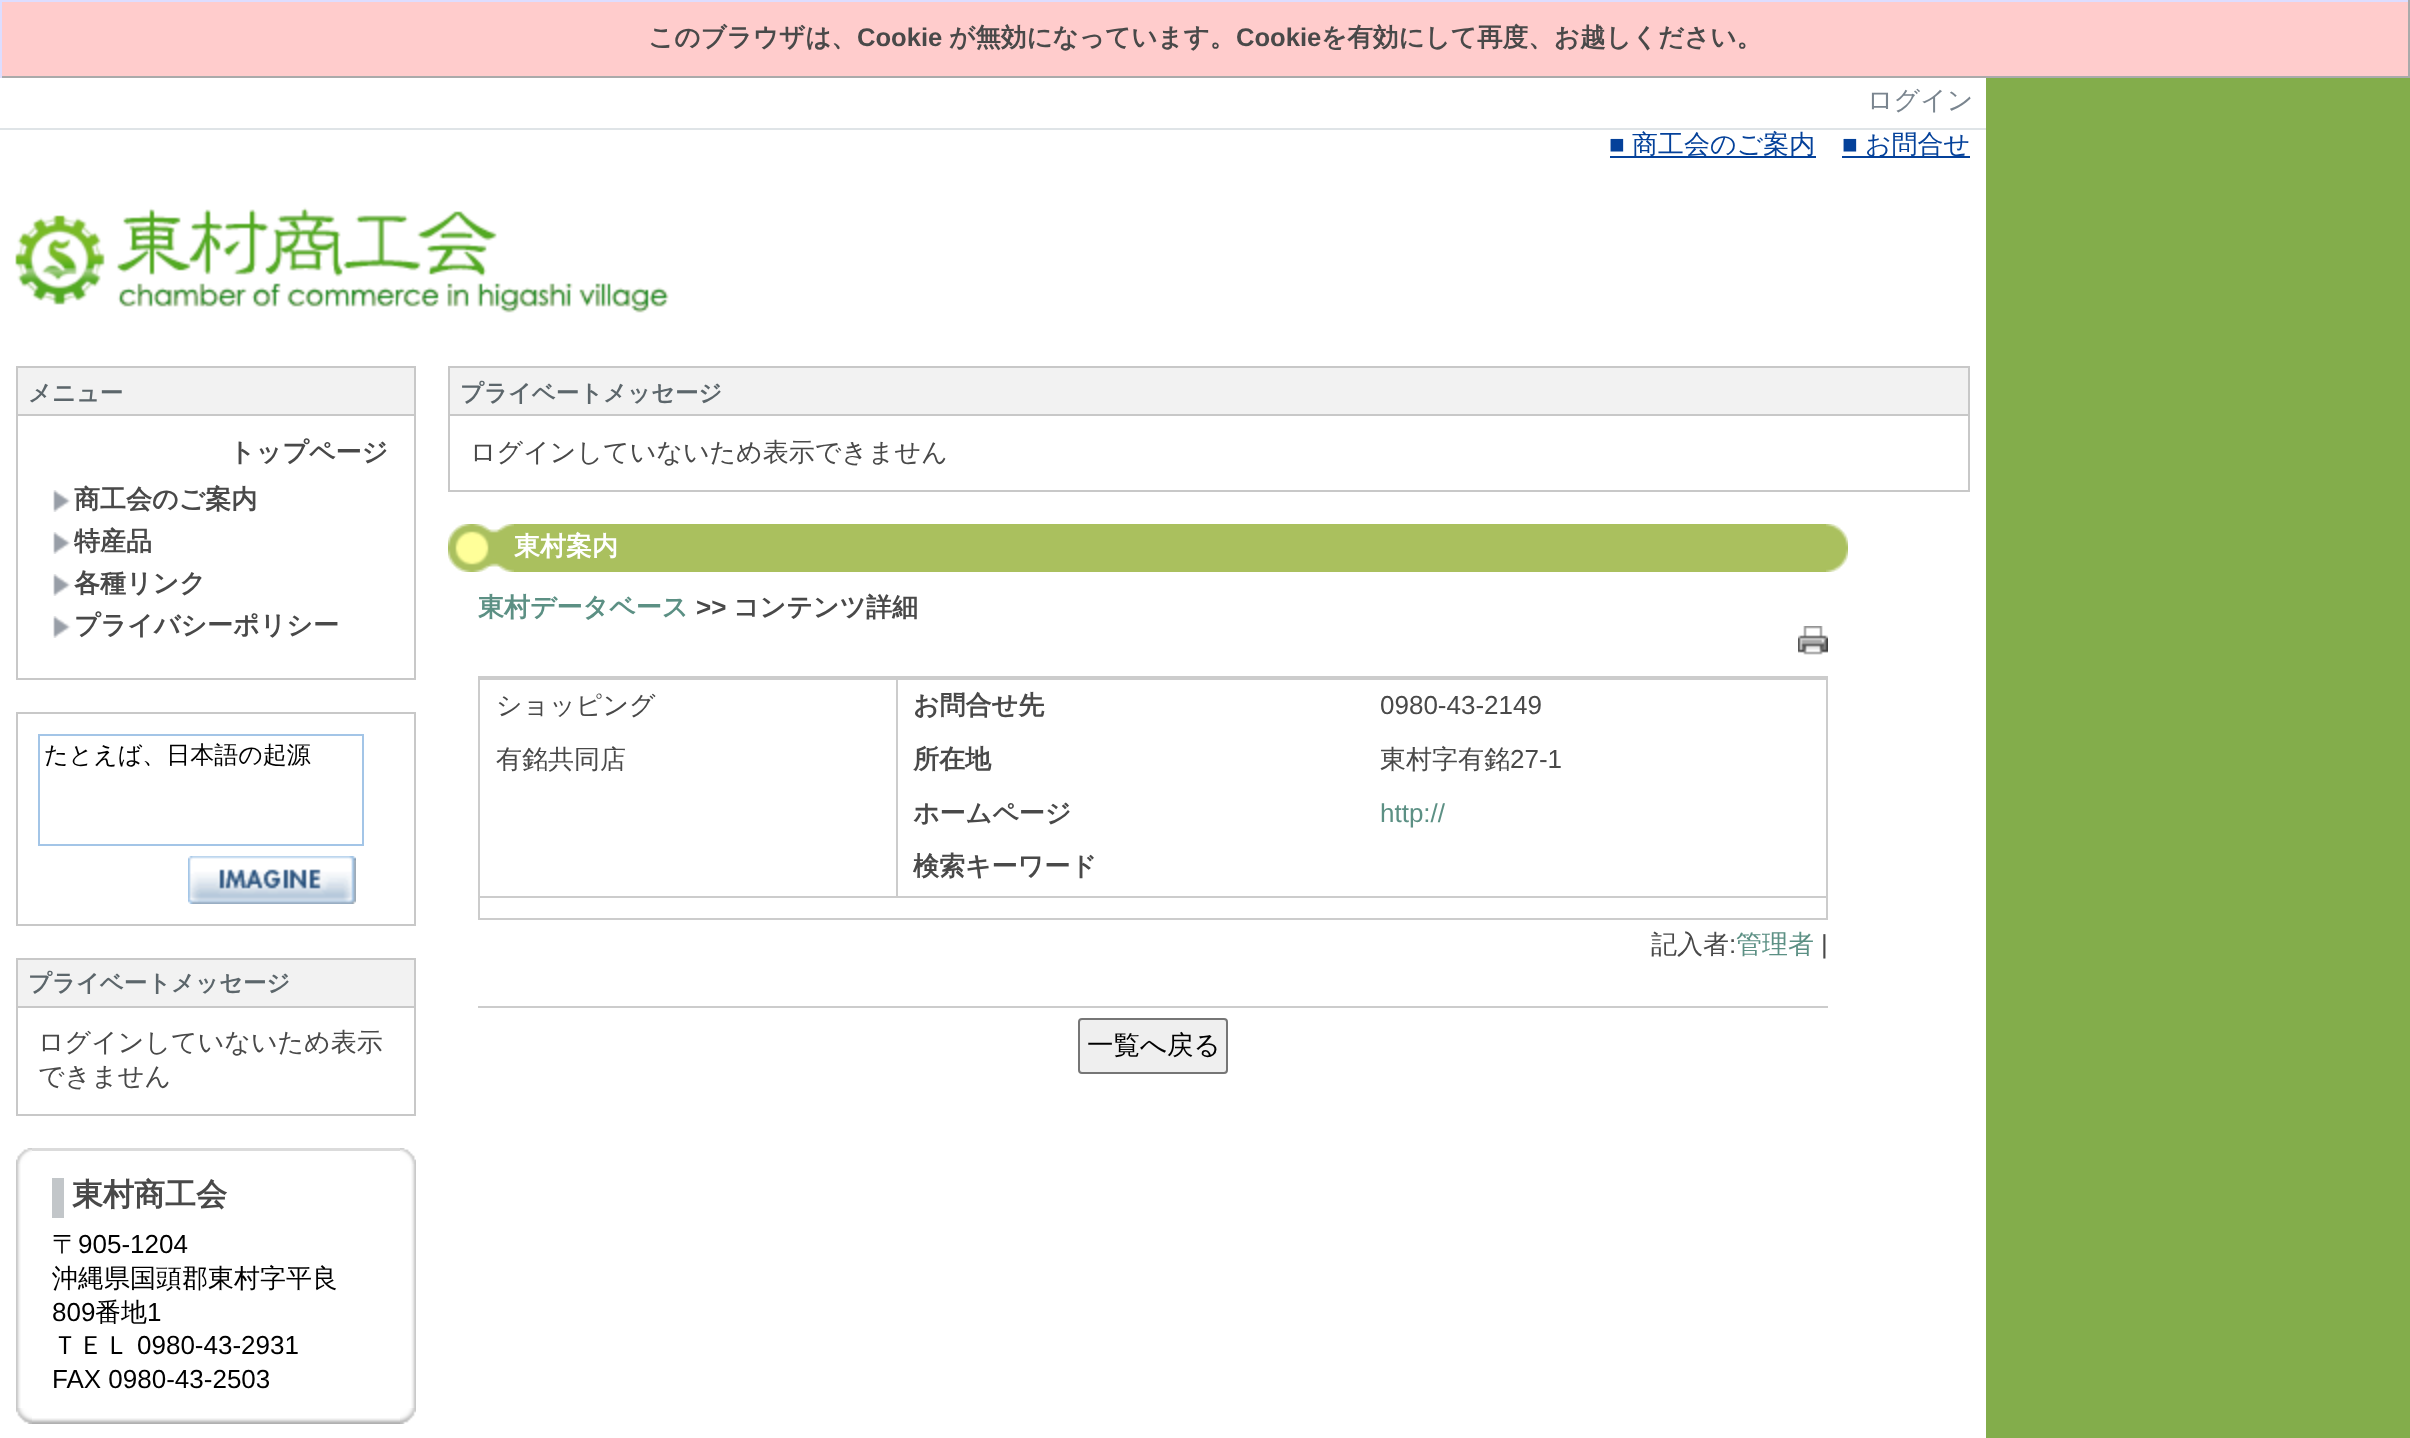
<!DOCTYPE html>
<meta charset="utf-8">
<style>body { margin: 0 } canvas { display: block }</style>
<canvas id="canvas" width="2410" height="1438"></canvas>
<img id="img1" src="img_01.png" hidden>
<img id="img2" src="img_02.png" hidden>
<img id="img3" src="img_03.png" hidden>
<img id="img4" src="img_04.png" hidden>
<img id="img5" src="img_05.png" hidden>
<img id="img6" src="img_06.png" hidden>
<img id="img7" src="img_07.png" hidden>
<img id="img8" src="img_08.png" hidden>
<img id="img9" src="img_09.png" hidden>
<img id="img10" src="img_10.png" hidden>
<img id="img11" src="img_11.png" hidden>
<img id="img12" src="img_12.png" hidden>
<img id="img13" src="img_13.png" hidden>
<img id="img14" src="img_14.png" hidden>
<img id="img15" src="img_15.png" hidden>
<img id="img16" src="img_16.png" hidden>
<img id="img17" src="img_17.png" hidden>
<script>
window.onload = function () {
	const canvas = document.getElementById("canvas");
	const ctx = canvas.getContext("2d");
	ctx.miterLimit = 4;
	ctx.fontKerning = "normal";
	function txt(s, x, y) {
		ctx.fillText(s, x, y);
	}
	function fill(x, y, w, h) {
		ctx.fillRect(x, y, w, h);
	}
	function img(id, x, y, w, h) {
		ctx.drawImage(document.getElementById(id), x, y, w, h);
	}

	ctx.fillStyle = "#83AD4B";
	fill(0, 0, 2410, 1438);
	ctx.fillStyle = "#FFCCCC";
	fill(2, 2, 2406, 74);
	ctx.fillStyle = "#DDDDFF";
	fill(0, 0, 2410, 2);
	ctx.fillStyle = "#AAAAAA";
	fill(2408, 0, 2, 78);
	fill(0, 76, 2410, 2);
	ctx.fillStyle = "#DDDDFF";
	fill(0, 0, 2, 78);
	ctx.fillStyle = "#FFFFFF";
	fill(0, 78, 1986, 50);
	ctx.fillStyle = "#DFE4E7";
	fill(0, 128, 1986, 2);
	ctx.fillStyle = "#FFFFFF";
	fill(0, 130, 1986, 220);
	ctx.fillStyle = "#04419A";
	fill(1610, 156, 206, 2);
	fill(1842, 156, 128, 2);
	img("img1", 15, 207, 654, 106);
	ctx.fillStyle = "#FFFFFF";
	fill(0, 350, 1986, 1088);
	ctx.fillStyle = "#C8C8C8";
	fill(16, 366, 400, 2);
	fill(414, 366, 2, 314);
	fill(16, 678, 400, 2);
	fill(16, 366, 2, 314);
	ctx.fillStyle = "#F2F2F2";
	fill(18, 368, 396, 46);
	ctx.fillStyle = "#C8C8C8";
	fill(16, 414, 400, 2);
	img("img2", 53, 490, 18, 22);
	img("img2", 53, 532, 18, 22);
	img("img2", 53, 574, 18, 22);
	img("img2", 53, 616, 18, 22);
	fill(16, 712, 400, 2);
	fill(414, 712, 2, 214);
	fill(16, 924, 400, 2);
	fill(16, 712, 2, 214);
	ctx.strokeStyle = "#A3C5E7";
	ctx.lineWidth = 2;
	ctx.strokeRect(39, 735, 324, 110);
	img("img3", 188, 856, 168, 48);
	fill(16, 958, 400, 2);
	fill(414, 958, 2, 158);
	fill(16, 1114, 400, 2);
	fill(16, 958, 2, 158);
	ctx.fillStyle = "#F2F2F2";
	fill(18, 960, 396, 46);
	ctx.fillStyle = "#C8C8C8";
	fill(16, 1006, 400, 2);
	img("img4", 16, 1148, 16, 16);
	img("img5", 16, 1148, 13, 13);
	ctx.fillStyle = "#DBDBDB";
	fill(32, 1148, 368, 3);
	img("img6", 400, 1148, 16, 16);
	img("img7", 403, 1148, 13, 13);
	img("img8", 16, 1164, 5, 244);
	ctx.fillStyle = "#C2C6C9";
	fill(52, 1178, 12, 40);
	img("img9", 411, 1164, 5, 244);
	img("img10", 16, 1408, 16, 16);
	img("img11", 32, 1418, 368, 6);
	img("img12", 400, 1408, 16, 16);
	ctx.fillStyle = "#C8C8C8";
	fill(448, 366, 1522, 2);
	fill(1968, 366, 2, 126);
	fill(448, 490, 1522, 2);
	fill(448, 366, 2, 126);
	ctx.fillStyle = "#F2F2F2";
	fill(450, 368, 1518, 46);
	ctx.fillStyle = "#C8C8C8";
	fill(448, 414, 1522, 2);
	img("img13", 448, 524, 66, 48);
	img("img14", 448, 524, 59, 48);
	ctx.fillStyle = "#AAC05E";
	fill(514, 524, 1312, 48);
	img("img15", 1826, 524, 22, 48);
	img("img16", 1833, 524, 15, 48);
	img("img17", 1798, 626, 30, 29);
	ctx.fillStyle = "#CCCCCC";
	fill(478, 676, 1350, 2);
	fill(1826, 676, 2, 244);
	fill(478, 918, 1350, 2);
	fill(478, 676, 2, 244);
	fill(896, 676, 2, 220);
	fill(480, 678, 416, 2);
	fill(898, 678, 928, 2);
	fill(480, 896, 1346, 2);
	fill(478, 1006, 1350, 2);
	ctx.fillStyle = "#EFEFEF";
	ctx.beginPath();
	ctx.roundRect(1079, 1019, 148, 54, 3);
	ctx.fill();
	ctx.strokeStyle = "#767676";
	ctx.stroke();
	ctx.font = "bold 25.6px WenQuanYi Zen Hei";
	ctx.fillStyle = "#494949";
	txt("このブラウザは、", 648, 46);
	ctx.font = "bold 25.6px Liberation Sans";
	txt("Cookie", 857, 46);
	ctx.font = "bold 25.6px WenQuanYi Zen Hei";
	txt("が無効になっています。", 949, 46);
	ctx.font = "bold 25.6px Liberation Sans";
	txt("Cookie", 1236, 46);
	ctx.font = "bold 25.6px WenQuanYi Zen Hei";
	txt("を有効にして再度、お越しください。", 1321, 46);
	ctx.font = "500 26px WenQuanYi Zen Hei";
	ctx.fillStyle = "#7A858F";
	txt("ログイン", 1867, 109);
	ctx.font = "26px Liberation Sans";
	ctx.fillStyle = "#04419A";
	txt("■", 1609, 153);
	ctx.font = "500 26px WenQuanYi Zen Hei";
	txt("商工会のご案内", 1632, 153);
	ctx.font = "26px Liberation Sans";
	txt("■", 1842, 153);
	ctx.font = "500 26px WenQuanYi Zen Hei";
	txt("お問合せ", 1865, 153);
	ctx.font = "bold 23.4px WenQuanYi Zen Hei";
	ctx.fillStyle = "#5C666B";
	txt("メニュー", 28, 401);
	ctx.font = "bold 26px WenQuanYi Zen Hei";
	ctx.fillStyle = "#494949";
	txt("トップページ", 229, 461);
	txt("商工会のご案内", 74, 508);
	txt("特産品", 74, 550);
	txt("各種リンク", 74, 592);
	txt("プライバシーポリシー", 74, 634);
	ctx.font = "500 24px WenQuanYi Zen Hei";
	ctx.fillStyle = "#000000";
	txt("たとえば、日本語の起源", 44, 763);
	ctx.font = "bold 23.4px WenQuanYi Zen Hei";
	ctx.fillStyle = "#5C666B";
	txt("プライベートメッセージ", 28, 991);
	ctx.font = "500 26px WenQuanYi Zen Hei";
	ctx.fillStyle = "#494949";
	txt("ログインしていないため表示", 38, 1051);
	txt("できません", 38, 1085);
	ctx.font = "bold 31px WenQuanYi Zen Hei";
	txt("東村商工会", 72, 1205);
	ctx.font = "500 26px WenQuanYi Zen Hei";
	ctx.fillStyle = "#000000";
	txt("〒", 52, 1253);
	ctx.font = "26px Liberation Sans";
	txt("905-1204", 78, 1253);
	ctx.font = "500 26px WenQuanYi Zen Hei";
	txt("沖縄県国頭郡東村字平良", 52, 1287);
	ctx.font = "26px Liberation Sans";
	txt("809", 52, 1321);
	ctx.font = "500 26px WenQuanYi Zen Hei";
	txt("番地", 95, 1321);
	ctx.font = "26px Liberation Sans";
	txt("1", 147, 1321);
	ctx.font = "500 26px WenQuanYi Zen Hei";
	txt("ＴＥＬ", 52, 1354);
	ctx.font = "26px Liberation Sans";
	txt("0980-43-2931", 137, 1354);
	txt("FAX 0980-43-2503", 52, 1388);
	ctx.font = "bold 23.4px WenQuanYi Zen Hei";
	ctx.fillStyle = "#5C666B";
	txt("プライベートメッセージ", 460, 401);
	ctx.font = "500 26px WenQuanYi Zen Hei";
	ctx.fillStyle = "#494949";
	txt("ログインしていないため表示できません", 470, 461);
	ctx.font = "bold 26px WenQuanYi Zen Hei";
	ctx.fillStyle = "#FFFFFF";
	txt("東村案内", 514, 555);
	ctx.fillStyle = "#5C9084";
	txt("東村データベース", 478, 616);
	ctx.font = "bold 26px Liberation Sans";
	ctx.fillStyle = "#494949";
	txt(">>", 696, 616);
	ctx.font = "bold 26px WenQuanYi Zen Hei";
	txt("コンテンツ詳細", 733, 616);
	ctx.font = "500 26px WenQuanYi Zen Hei";
	txt("ショッピング", 496, 714);
	txt("有銘共同店", 496, 768);
	ctx.font = "bold 26px WenQuanYi Zen Hei";
	txt("お問合せ先", 913, 714);
	ctx.font = "26px Liberation Sans";
	txt("0980-43-2149", 1380, 714);
	ctx.font = "bold 26px WenQuanYi Zen Hei";
	txt("所在地", 913, 768);
	ctx.font = "500 26px WenQuanYi Zen Hei";
	txt("東村字有銘", 1380, 768);
	ctx.font = "26px Liberation Sans";
	txt("27-1", 1510, 768);
	ctx.font = "bold 26px WenQuanYi Zen Hei";
	txt("ホームページ", 913, 822);
	ctx.font = "26px Liberation Sans";
	ctx.fillStyle = "#5C9084";
	txt("http://", 1380, 822);
	ctx.font = "bold 26px WenQuanYi Zen Hei";
	ctx.fillStyle = "#494949";
	txt("検索キーワード", 913, 875);
	ctx.font = "500 26px WenQuanYi Zen Hei";
	txt("記入者", 1651, 953);
	ctx.font = "26px Liberation Sans";
	txt(":", 1729, 953);
	ctx.font = "500 26px WenQuanYi Zen Hei";
	ctx.fillStyle = "#5C9084";
	txt("管理者", 1736, 953);
	ctx.font = "26px Liberation Sans";
	ctx.fillStyle = "#494949";
	txt("|", 1821, 953);
	ctx.font = "500 26.5px WenQuanYi Zen Hei";
	ctx.fillStyle = "#000000";
	txt("一覧へ戻る", 1087, 1054);
};
</script>
